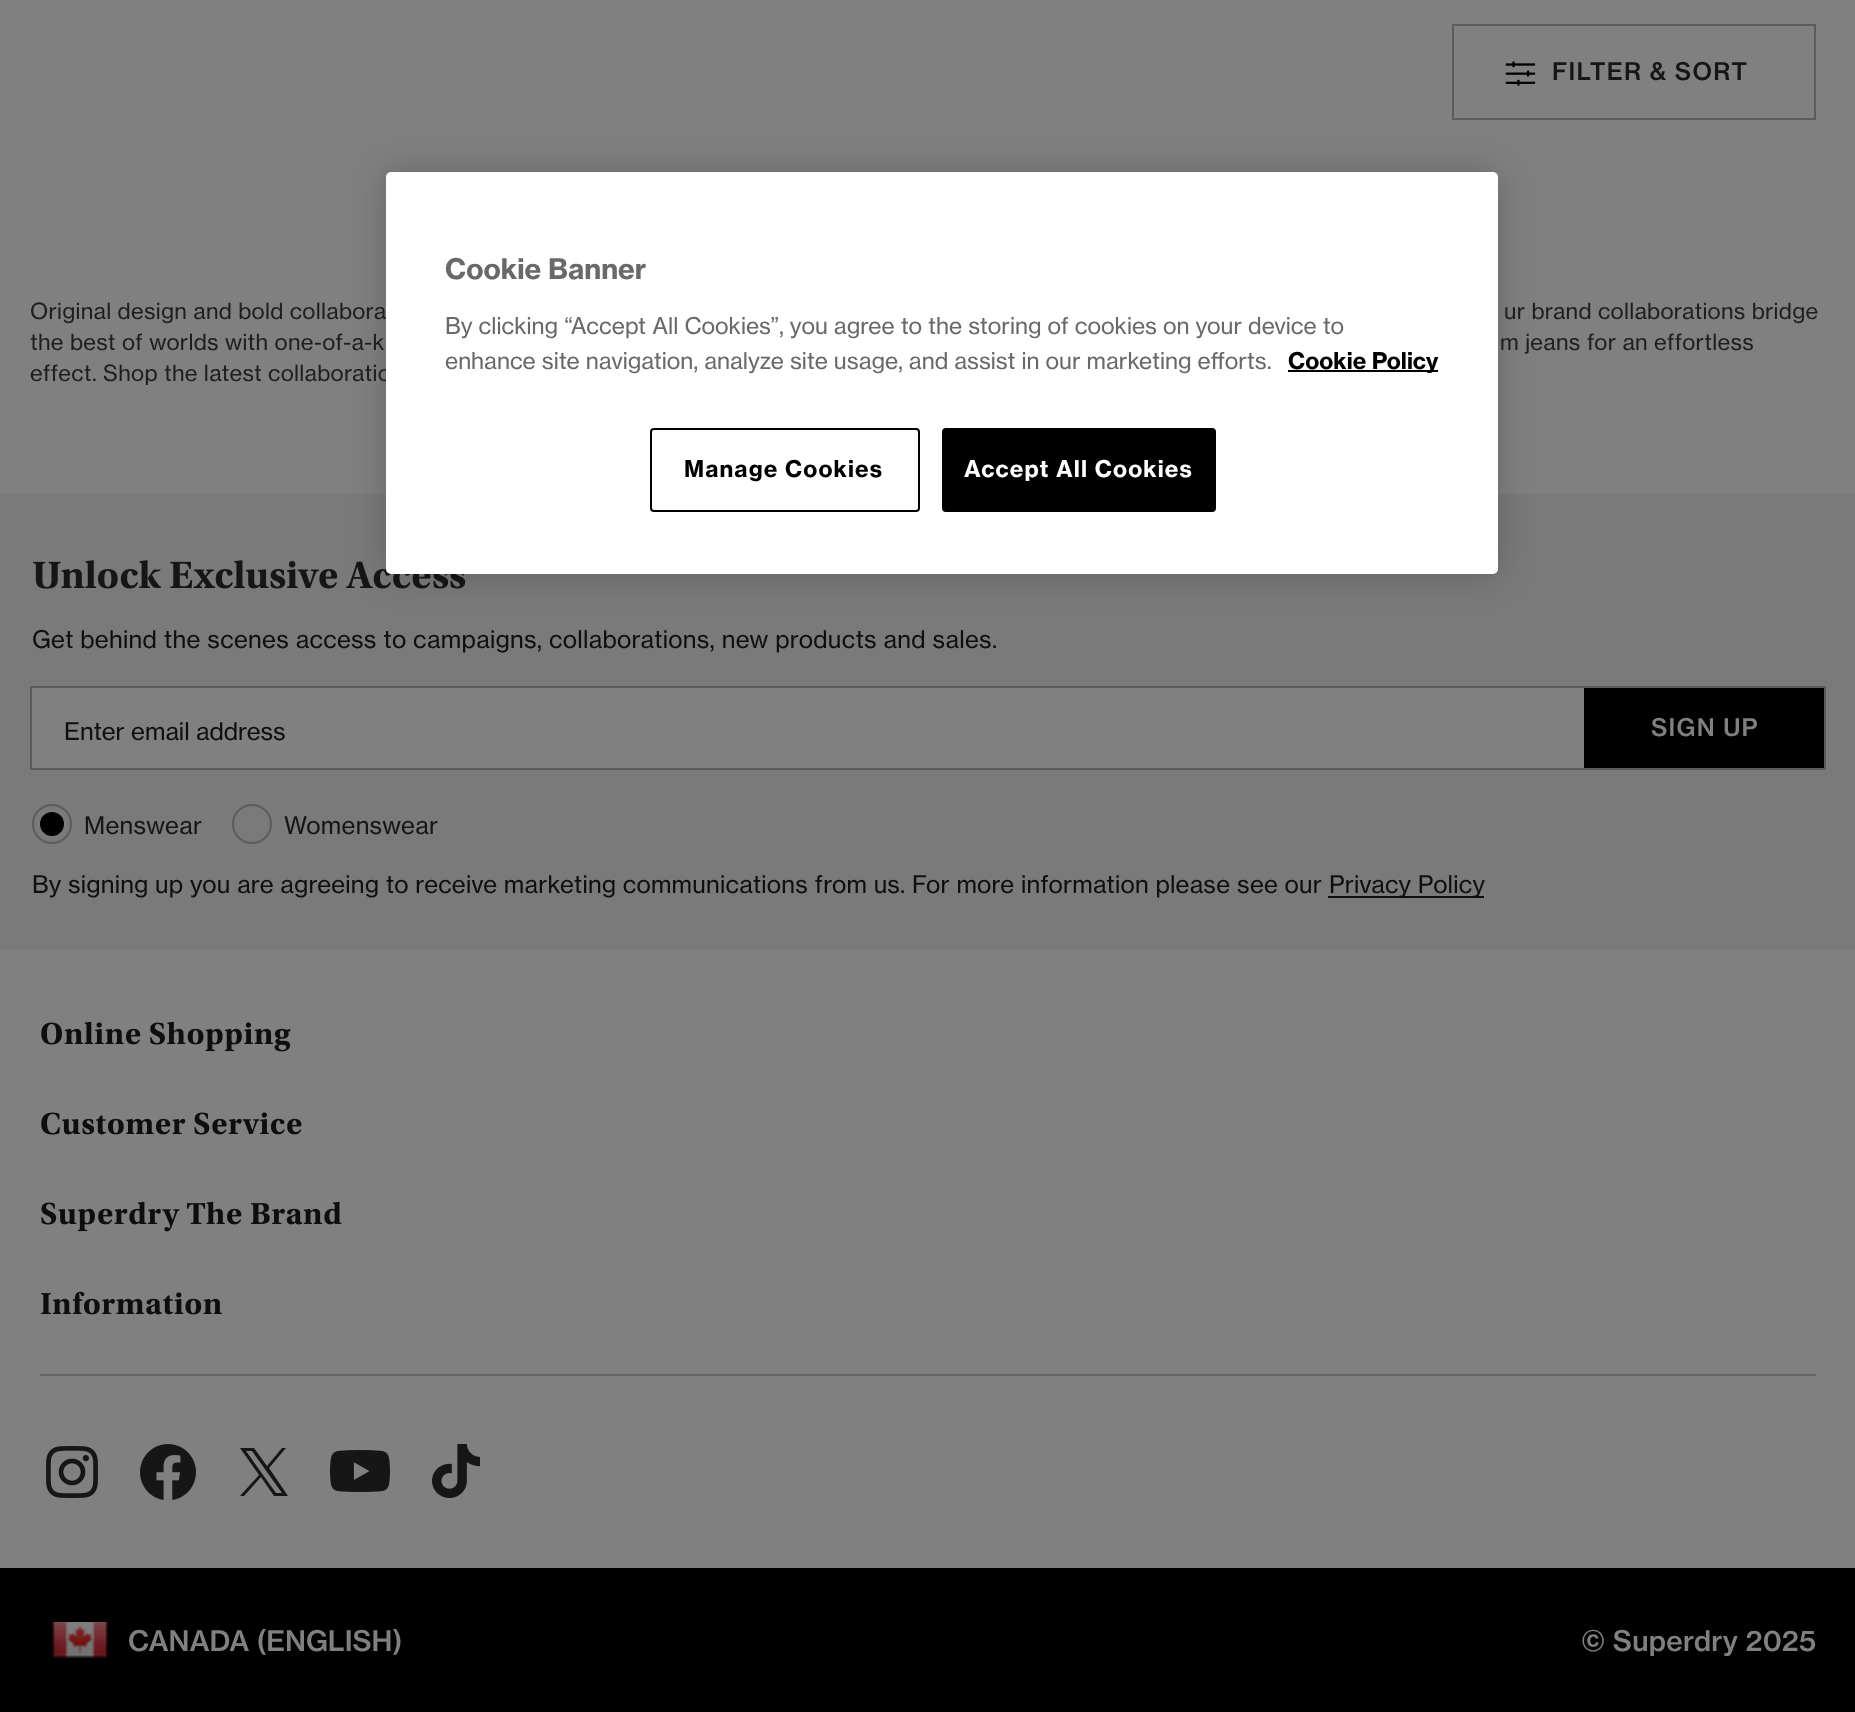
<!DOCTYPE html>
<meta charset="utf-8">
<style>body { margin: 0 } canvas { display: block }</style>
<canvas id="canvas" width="1855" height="1712"></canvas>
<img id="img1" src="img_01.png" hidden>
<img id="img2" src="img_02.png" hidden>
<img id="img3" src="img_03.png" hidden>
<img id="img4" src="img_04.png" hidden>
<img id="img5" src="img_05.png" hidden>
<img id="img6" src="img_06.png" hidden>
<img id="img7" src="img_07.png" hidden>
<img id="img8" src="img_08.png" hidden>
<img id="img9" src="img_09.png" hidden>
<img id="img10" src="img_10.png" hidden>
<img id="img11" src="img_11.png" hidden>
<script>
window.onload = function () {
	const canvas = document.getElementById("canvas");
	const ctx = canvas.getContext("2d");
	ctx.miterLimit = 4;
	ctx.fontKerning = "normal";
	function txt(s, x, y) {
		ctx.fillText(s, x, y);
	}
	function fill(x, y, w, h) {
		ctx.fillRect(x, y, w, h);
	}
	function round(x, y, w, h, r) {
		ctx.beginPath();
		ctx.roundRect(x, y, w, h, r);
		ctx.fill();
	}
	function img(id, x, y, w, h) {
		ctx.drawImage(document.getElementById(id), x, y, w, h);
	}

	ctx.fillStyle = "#808080";
	fill(0, 0, 1855, 1712);
	ctx.strokeStyle = "#5C5C5C";
	ctx.lineWidth = 2;
	ctx.strokeRect(1453, 25, 362, 94);
	img("img1", 1505, 61, 31, 25);
	ctx.fillStyle = "#7A7A7A";
	fill(0, 494, 1855, 456);
	img("img2", 33, 560, 433, 29);
	ctx.fillStyle = "#808080";
	fill(32, 688, 1552, 80);
	ctx.strokeRect(31, 687, 1794, 82);
	ctx.fillStyle = "#000000";
	fill(1584, 688, 240, 80);
	ctx.beginPath();
	ctx.arc(52, 824, 19, 0, Math.PI * 2);
	ctx.stroke();
	ctx.beginPath();
	ctx.arc(52, 824, 12, 0, Math.PI * 2);
	ctx.fill();
	ctx.beginPath();
	ctx.arc(252, 824, 19, 0, Math.PI * 2);
	ctx.stroke();
	ctx.fillStyle = "#0F0F0F";
	fill(1328, 896, 156, 2);
	img("img3", 41, 1021, 250, 31);
	img("img4", 41, 1112, 261, 23);
	img("img5", 41, 1201, 301, 31);
	img("img6", 41, 1291, 181, 24);
	ctx.fillStyle = "#666666";
	fill(40, 1374, 1776, 2);
	img("img7", 46, 1446, 52, 52);
	img("img8", 140, 1444, 56, 56);
	ctx.fillStyle = "#161616";
	ctx.beginPath();
	ctx.moveTo(269, 1468);
	ctx.lineTo(286, 1448);
	ctx.lineTo(282, 1448);
	ctx.lineTo(267, 1466);
	ctx.lineTo(254, 1448);
	ctx.lineTo(240, 1448);
	ctx.lineTo(259, 1475);
	ctx.lineTo(240, 1496);
	ctx.lineTo(244, 1496);
	ctx.lineTo(261, 1477);
	ctx.lineTo(274, 1496);
	ctx.lineTo(288, 1496);
	ctx.closePath();
	ctx.moveTo(263, 1475);
	ctx.lineTo(246, 1451);
	ctx.lineTo(252, 1451);
	ctx.lineTo(282, 1493);
	ctx.lineTo(276, 1493);
	ctx.closePath();
	ctx.fill();
	img("img9", 330, 1450, 60, 42);
	img("img10", 432, 1444, 48, 54);
	ctx.fillStyle = "#000000";
	fill(0, 1568, 1855, 144);
	img("img11", 52, 1622, 56, 36);
	ctx.fillStyle = "rgba(0, 0, 0, 0.2)";
	ctx.filter = "blur(18px)";
	ctx.beginPath();
	ctx.roundRect(386, 172, 1112, 402, 5);
	ctx.fill();
	ctx.filter = "none";
	ctx.letterSpacing = "1.25px";
	ctx.font = "500 24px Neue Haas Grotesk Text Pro";
	ctx.fillStyle = "#161616";
	txt("FILTER & SORT", 1552, 80);
	ctx.letterSpacing = "0.28px";
	ctx.font = "22px Neue Haas Grotesk Text Pro";
	ctx.fillStyle = "#1E1E1E";
	txt("Original design and bold collabora", 30, 319);
	txt("ur brand collaborations bridge", 1504, 319);
	txt("the best of worlds with one-of-a-k", 30, 350);
	txt("m jeans for an effortless", 1500, 350);
	txt("effect. Shop the latest collaboratio", 30, 381);
	ctx.font = "24px Neue Haas Grotesk Text Pro";
	ctx.fillStyle = "#0F0F0F";
	txt("Get behind the scenes access to campaigns, collaborations, new products and sales.", 32, 648);
	ctx.letterSpacing = "0px";
	txt("Enter email address", 64, 740);
	ctx.letterSpacing = "1.25px";
	ctx.font = "500 24px Neue Haas Grotesk Text Pro";
	ctx.fillStyle = "#808080";
	txt("SIGN UP", 1651, 736);
	ctx.letterSpacing = "0.28px";
	ctx.font = "24px Neue Haas Grotesk Text Pro";
	ctx.fillStyle = "#161616";
	txt("Menswear", 84, 834);
	txt("Womenswear", 284, 834);
	ctx.letterSpacing = "0.2px";
	ctx.fillStyle = "#0F0F0F";
	txt("By signing up you are agreeing to receive marketing communications from us. For more information please see our", 32, 893);
	txt("Privacy Policy", 1329, 893);
	ctx.letterSpacing = "0px";
	ctx.font = "500 28px Neue Haas Grotesk Text Pro";
	ctx.fillStyle = "#808080";
	txt("CANADA (ENGLISH)", 128, 1651);
	ctx.letterSpacing = "0.28px";
	txt("© Superdry 2025", 1581, 1651);
	ctx.fillStyle = "#FFFFFF";
	round(386, 172, 1112, 402, 5);
	ctx.letterSpacing = "0px";
	ctx.font = "bold 28px Neue Haas Grotesk Text Pro";
	ctx.fillStyle = "#696969";
	txt("Cookie Banner", 445, 279);
	ctx.font = "22.75px Neue Haas Grotesk Text Pro";
	txt("By clicking “Accept All Cookies”, you agree to the storing of cookies on your device to", 445, 334);
	txt("enhance site navigation, analyze site usage, and assist in our marketing efforts.", 445, 369);
	ctx.fillStyle = "#000000";
	fill(1288, 370, 150, 2);
	ctx.font = "bold 22.75px Neue Haas Grotesk Text Pro";
	txt("Cookie Policy", 1288, 369);
	ctx.beginPath();
	ctx.roundRect(651, 429, 268, 82, 3);
	ctx.strokeStyle = "#000000";
	ctx.stroke();
	ctx.letterSpacing = "1.1px";
	txt("Manage Cookies", 684, 477);
	ctx.beginPath();
	ctx.roundRect(943, 429, 272, 82, 3);
	ctx.fill();
	ctx.stroke();
	ctx.fillStyle = "#FFFFFF";
	txt("Accept All Cookies", 964, 477);
};
</script>
